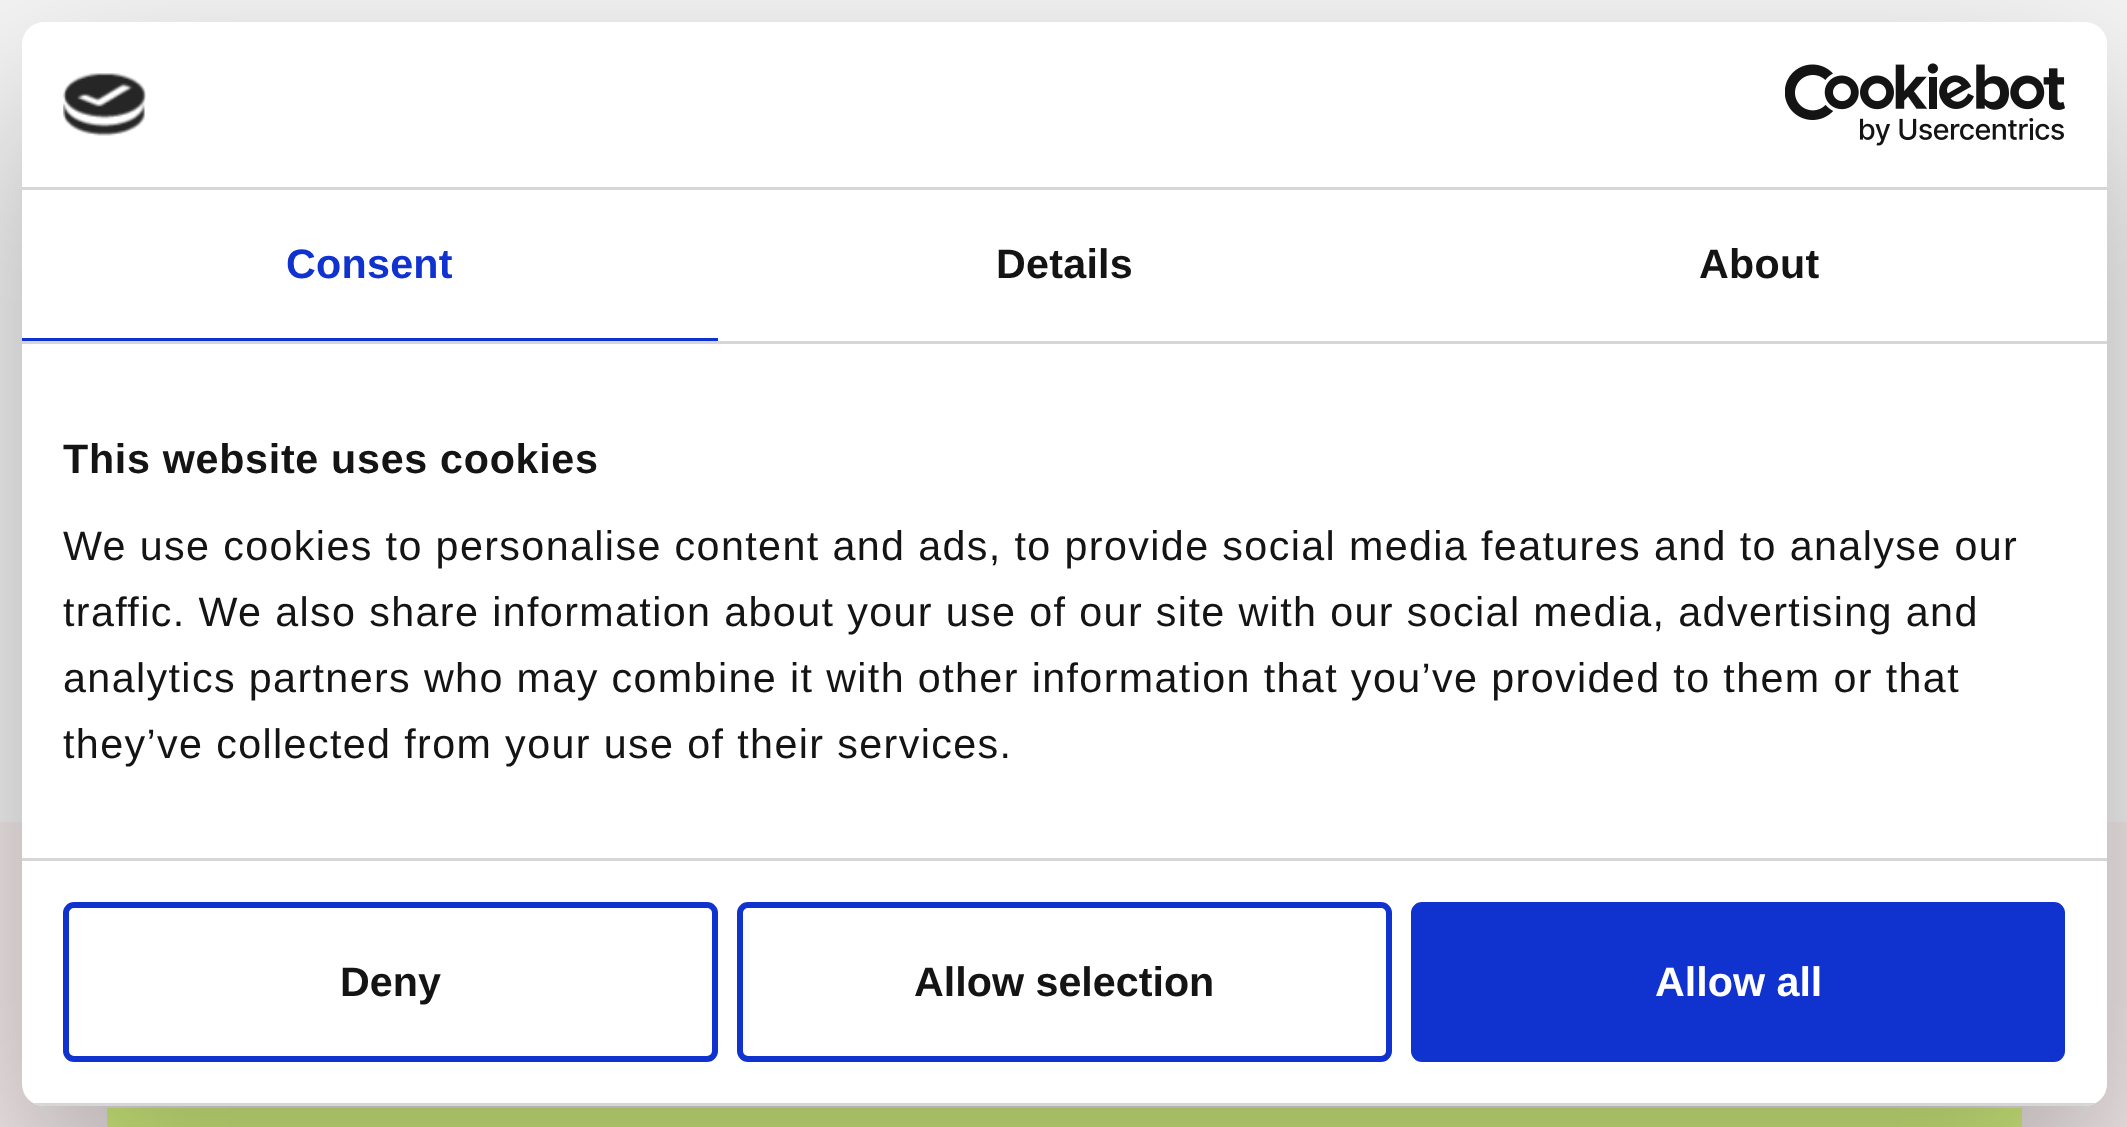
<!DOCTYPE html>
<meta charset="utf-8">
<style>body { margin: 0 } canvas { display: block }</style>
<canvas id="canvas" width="2127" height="1127"></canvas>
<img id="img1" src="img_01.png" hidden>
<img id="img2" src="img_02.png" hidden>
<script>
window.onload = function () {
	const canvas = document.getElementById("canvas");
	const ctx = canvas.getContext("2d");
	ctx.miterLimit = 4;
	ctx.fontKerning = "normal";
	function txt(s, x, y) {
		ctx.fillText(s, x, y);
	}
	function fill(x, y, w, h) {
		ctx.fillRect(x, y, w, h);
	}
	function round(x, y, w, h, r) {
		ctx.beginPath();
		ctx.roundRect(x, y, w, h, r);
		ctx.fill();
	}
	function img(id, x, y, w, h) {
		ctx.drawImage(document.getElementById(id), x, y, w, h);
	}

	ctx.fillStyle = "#F4EBEB";
	fill(0, 0, 2127, 1127);
	ctx.fillStyle = "#F4F4F4";
	fill(0, 0, 2127, 822);
	ctx.fillStyle = "#DAF884";
	fill(107, 1108, 1915, 19);
	ctx.fillStyle = "rgba(0, 0, 0, 0.3)";
	ctx.filter = "blur(93.5px)";
	ctx.beginPath();
	ctx.roundRect(22, 110, 2085, 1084, 22);
	ctx.fill();
	ctx.filter = "none";
	ctx.fillStyle = "#FFFFFF";
	round(22, 22, 2085, 1084, 22);
	ctx.fillStyle = "#D6D6D6";
	fill(22, 187, 2085, 3);
	img("img1", 63, 73, 83, 63);
	img("img2", 1785, 63, 280, 83);
	fill(22, 341, 2085, 3);
	ctx.fillStyle = "#1032CF";
	fill(22, 338, 696, 3);
	ctx.fillStyle = "#D6D6D6";
	fill(22, 858, 2085, 3);
	ctx.save();
	ctx.beginPath();
	ctx.roundRect(22, 22, 2085, 1084, 22);
	ctx.clip();
	fill(33, 1103, 2063, 3);
	ctx.restore();
	ctx.beginPath();
	ctx.roundRect(66, 905, 649, 154, 8);
	ctx.strokeStyle = "#1032CF";
	ctx.lineWidth = 6;
	ctx.stroke();
	ctx.beginPath();
	ctx.roundRect(740, 905, 649, 154, 8);
	ctx.stroke();
	ctx.fillStyle = "#1032CF";
	ctx.beginPath();
	ctx.roundRect(1414, 905, 648, 154, 8);
	ctx.fill();
	ctx.stroke();
	ctx.letterSpacing = "0.25px";
	ctx.font = "bold 41.25px Liberation Sans";
	txt("Consent", 286, 278);
	ctx.fillStyle = "#141414";
	txt("Details", 996, 278);
	txt("About", 1699, 278);
	ctx.letterSpacing = "0.7px";
	txt("This website uses cookies", 63, 473);
	ctx.letterSpacing = "1.38px";
	ctx.font = "41.25px Liberation Sans";
	txt("We use cookies to personalise content and ads, to provide social media features and to analyse our", 63, 560);
	txt("traffic. We also share information about your use of our site with our social media, advertising and", 63, 626);
	txt("analytics partners who may combine it with other information that you’ve provided to them or that", 63, 692);
	txt("they’ve collected from your use of their services.", 63, 758);
	ctx.letterSpacing = "0px";
	ctx.font = "bold 41.25px Liberation Sans";
	txt("Deny", 340, 996);
	txt("Allow selection", 914, 996);
	ctx.fillStyle = "#FFFFFF";
	txt("Allow all", 1655, 996);
};
</script>
